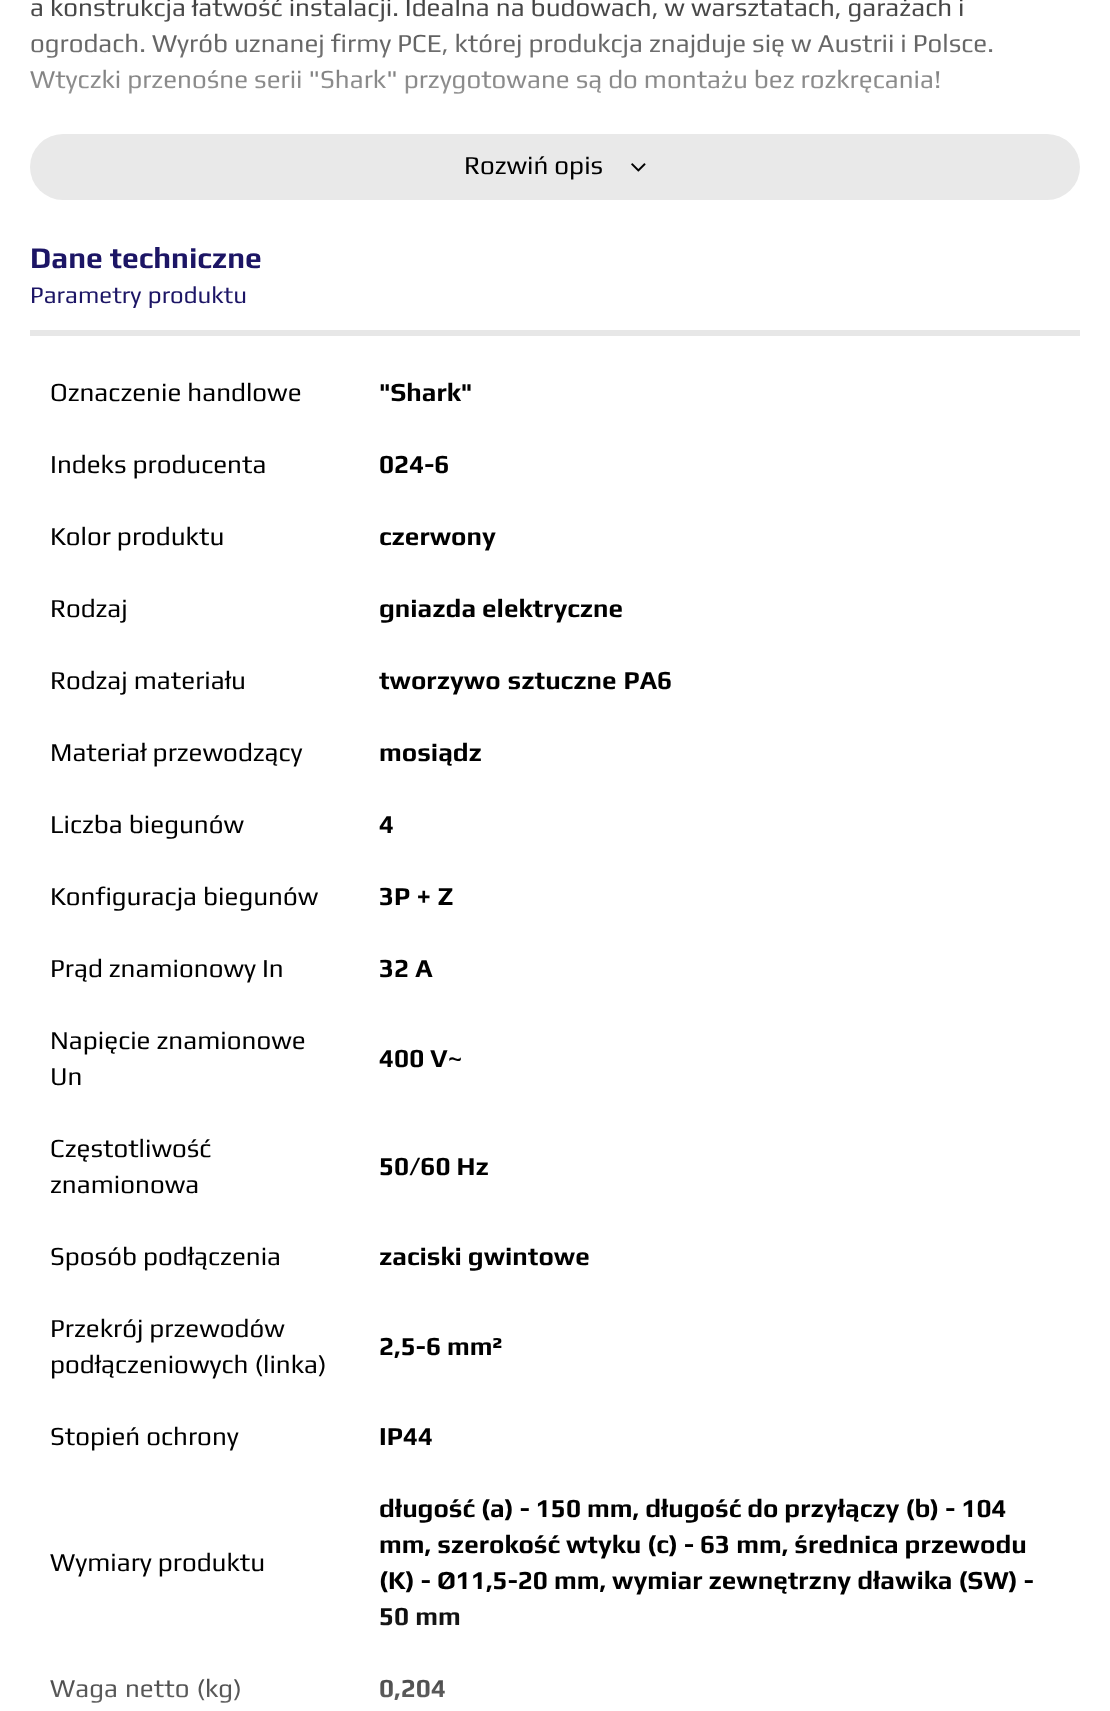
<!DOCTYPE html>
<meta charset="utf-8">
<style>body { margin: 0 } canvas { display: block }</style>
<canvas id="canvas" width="1110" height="1711"></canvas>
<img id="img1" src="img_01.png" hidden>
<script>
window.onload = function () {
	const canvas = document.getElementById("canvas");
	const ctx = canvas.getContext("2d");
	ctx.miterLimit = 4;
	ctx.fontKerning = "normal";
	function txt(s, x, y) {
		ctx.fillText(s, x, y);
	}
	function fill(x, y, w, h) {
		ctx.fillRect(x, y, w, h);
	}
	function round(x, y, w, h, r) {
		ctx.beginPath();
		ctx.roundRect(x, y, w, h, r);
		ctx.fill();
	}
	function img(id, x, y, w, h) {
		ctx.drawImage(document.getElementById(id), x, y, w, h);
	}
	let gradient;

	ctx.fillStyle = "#FFFFFF";
	fill(0, 0, 1110, 1711);
	ctx.fillStyle = "#E9E9E9";
	round(30, 134, 1050, 66, 33);
	img("img1", 631, 163, 15, 9);
	ctx.fillStyle = "#E7E7E7";
	fill(30, 330, 1050, 6);
	ctx.font = "26px Play";
	ctx.fillStyle = "#000000";
	txt("a konstrukcja łatwość instalacji. Idealna na budowach, w warsztatach, garażach i", 30, 16);
	txt("ogrodach. Wyrób uznanej firmy PCE, której produkcja znajduje się w Austrii i Polsce.", 30, 52);
	txt("Wtyczki przenośne serii \"Shark\" przygotowane są do montażu bez rozkręcania!", 30, 88);
	gradient = ctx.createLinearGradient(555, -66, 555, 206);
	gradient.addColorStop(0, "rgba(255, 255, 255, 0)");
	gradient.addColorStop(1, "#FFFFFF");
	ctx.fillStyle = gradient;
	fill(30, 0, 963, 94);
	ctx.fillStyle = "#000000";
	txt("Rozwiń opis", 464, 174);
	ctx.font = "bold 30px Play";
	ctx.fillStyle = "#1C1565";
	txt("Dane techniczne", 30, 268);
	ctx.wordSpacing = "1px";
	ctx.font = "24px Play";
	txt("Parametry produktu", 30, 303);
	ctx.wordSpacing = "0px";
	ctx.font = "26px Play";
	ctx.fillStyle = "#000000";
	txt("Oznaczenie handlowe", 50, 401);
	ctx.font = "bold 26px Play";
	txt("\"Shark\"", 379, 401);
	ctx.font = "26px Play";
	txt("Indeks producenta", 50, 473);
	ctx.font = "bold 26px Play";
	txt("024-6", 379, 473);
	ctx.font = "26px Play";
	txt("Kolor produktu", 50, 545);
	ctx.font = "bold 26px Play";
	txt("czerwony", 379, 545);
	ctx.font = "26px Play";
	txt("Rodzaj", 50, 617);
	ctx.font = "bold 26px Play";
	txt("gniazda elektryczne", 379, 617);
	ctx.font = "26px Play";
	txt("Rodzaj materiału", 50, 689);
	ctx.wordSpacing = "1px";
	ctx.font = "bold 26px Play";
	txt("tworzywo sztuczne PA6", 379, 689);
	ctx.wordSpacing = "0px";
	ctx.font = "26px Play";
	txt("Materiał przewodzący", 50, 761);
	ctx.font = "bold 26px Play";
	txt("mosiądz", 379, 761);
	ctx.font = "26px Play";
	txt("Liczba biegunów", 50, 833);
	ctx.font = "bold 26px Play";
	txt("4", 379, 833);
	ctx.font = "26px Play";
	txt("Konfiguracja biegunów", 50, 905);
	ctx.font = "bold 26px Play";
	txt("3P + Z", 379, 905);
	ctx.font = "26px Play";
	txt("Prąd znamionowy In", 50, 977);
	ctx.font = "bold 26px Play";
	txt("32 A", 379, 977);
	ctx.font = "26px Play";
	txt("Napięcie znamionowe", 50, 1049);
	txt("Un", 50, 1085);
	ctx.font = "bold 26px Play";
	txt("400 V~", 379, 1067);
	ctx.font = "26px Play";
	txt("Częstotliwość", 50, 1157);
	txt("znamionowa", 50, 1193);
	ctx.font = "bold 26px Play";
	txt("50/60 Hz", 379, 1175);
	ctx.font = "26px Play";
	txt("Sposób podłączenia", 50, 1265);
	ctx.font = "bold 26px Play";
	txt("zaciski gwintowe", 379, 1265);
	ctx.font = "26px Play";
	txt("Przekrój przewodów", 50, 1337);
	txt("podłączeniowych (linka)", 50, 1373);
	ctx.font = "bold 26px Play";
	txt("2,5-6 mm²", 379, 1355);
	ctx.font = "26px Play";
	txt("Stopień ochrony", 50, 1445);
	ctx.font = "bold 26px Play";
	txt("IP44", 379, 1445);
	ctx.font = "26px Play";
	txt("Wymiary produktu", 50, 1571);
	ctx.font = "bold 26px Play";
	txt("długość (a) - 150 mm, długość do przyłączy (b) - 104", 379, 1517);
	txt("mm, szerokość wtyku (c) - 63 mm, średnica przewodu", 379, 1553);
	txt("(K) - Ø11,5-20 mm, wymiar zewnętrzny dławika (SW) -", 379, 1589);
	txt("50 mm", 379, 1625);
	ctx.wordSpacing = "1px";
	ctx.font = "26px Play";
	txt("Waga netto (kg)", 50, 1697);
	ctx.wordSpacing = "0px";
	ctx.font = "bold 26px Play";
	txt("0,204", 379, 1697);
	gradient = ctx.createLinearGradient(555, 1598, 555, 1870);
	gradient.addColorStop(0, "rgba(255, 255, 255, 0)");
	gradient.addColorStop(1, "#FFFFFF");
	ctx.fillStyle = gradient;
	fill(50, 1608, 410, 95);
};
</script>
